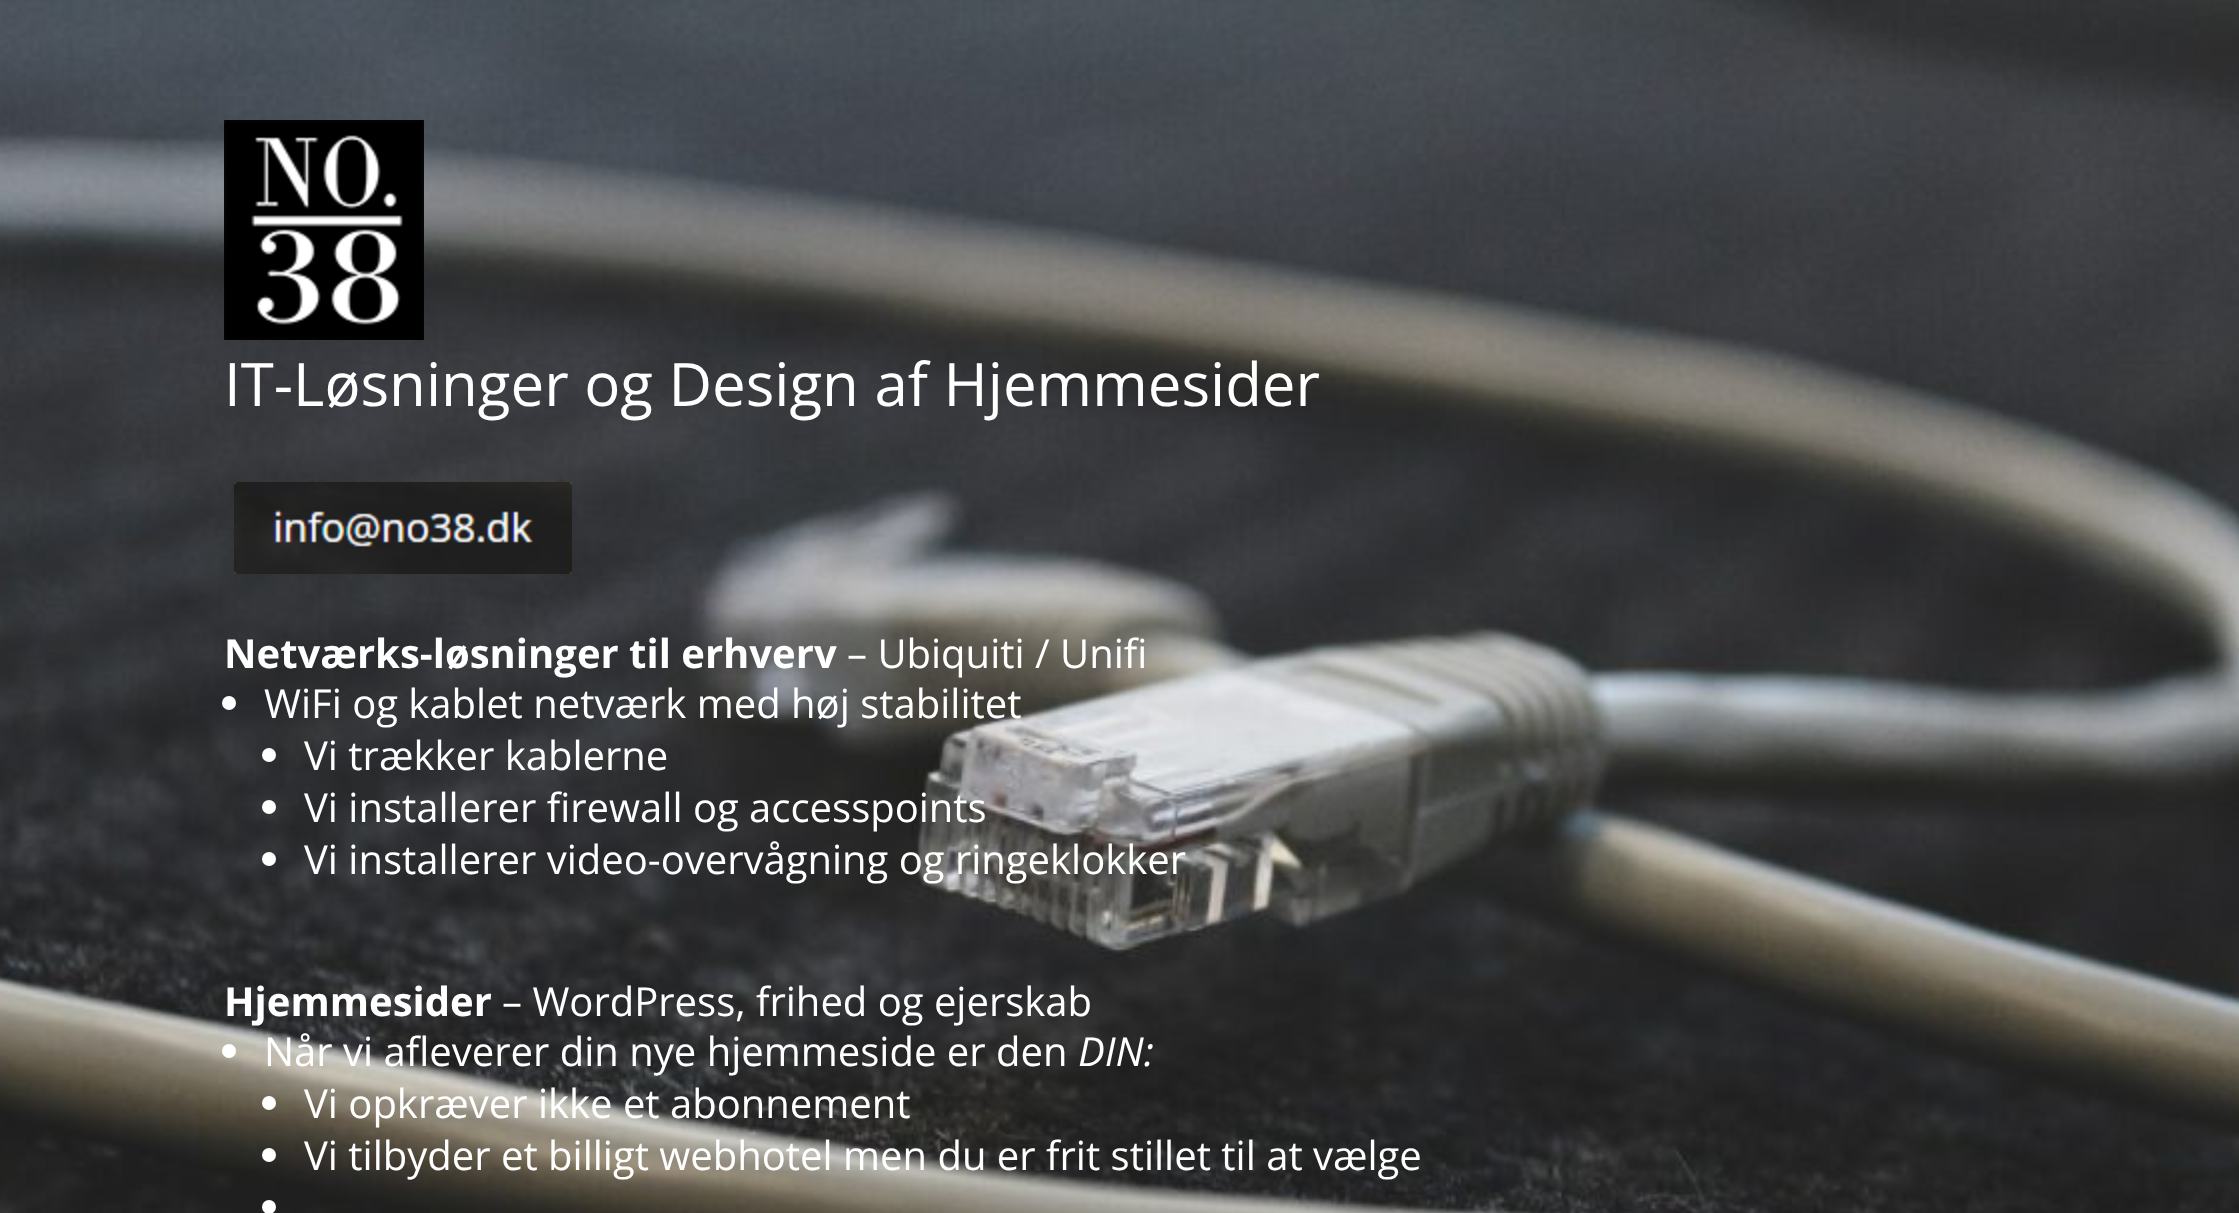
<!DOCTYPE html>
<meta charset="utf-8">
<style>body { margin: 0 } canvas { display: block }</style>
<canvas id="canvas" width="2239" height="1213"></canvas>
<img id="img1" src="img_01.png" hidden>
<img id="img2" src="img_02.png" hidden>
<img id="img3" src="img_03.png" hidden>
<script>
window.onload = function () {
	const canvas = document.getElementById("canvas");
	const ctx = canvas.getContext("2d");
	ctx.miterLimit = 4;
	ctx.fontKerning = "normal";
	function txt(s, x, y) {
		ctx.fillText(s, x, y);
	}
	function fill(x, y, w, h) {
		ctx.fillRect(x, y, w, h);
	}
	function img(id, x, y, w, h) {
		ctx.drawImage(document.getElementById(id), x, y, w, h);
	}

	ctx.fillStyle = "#FFFFFF";
	fill(0, 0, 2239, 1213);
	img("img1", 0, 0, 2239, 1213);
	img("img2", 224, 120, 200, 220);
	img("img3", 234, 482, 338, 92);
	ctx.beginPath();
	ctx.arc(229, 703, 7, 0, Math.PI * 2);
	ctx.fill();
	ctx.beginPath();
	ctx.arc(269, 755, 7, 0, Math.PI * 2);
	ctx.fill();
	ctx.beginPath();
	ctx.arc(269, 807, 7, 0, Math.PI * 2);
	ctx.fill();
	ctx.beginPath();
	ctx.arc(269, 859, 7, 0, Math.PI * 2);
	ctx.fill();
	ctx.beginPath();
	ctx.arc(229, 1051, 7, 0, Math.PI * 2);
	ctx.fill();
	ctx.beginPath();
	ctx.arc(269, 1103, 7, 0, Math.PI * 2);
	ctx.fill();
	ctx.beginPath();
	ctx.arc(269, 1155, 7, 0, Math.PI * 2);
	ctx.fill();
	ctx.beginPath();
	ctx.arc(269, 1207, 7, 0, Math.PI * 2);
	ctx.fill();
	ctx.font = "60px Open Sans";
	txt("IT-Løsninger og Design af Hjemmesider", 224, 406);
	ctx.font = "bold 40px Open Sans";
	txt("Netværks-løsninger til erhverv", 224, 668);
	ctx.font = "40px Open Sans";
	txt("– Ubiquiti / Unifi", 847, 668);
	txt("WiFi og kablet netværk med høj stabilitet", 264, 718);
	txt("Vi trækker kablerne", 304, 770);
	txt("Vi installerer firewall og accesspoints", 304, 822);
	txt("Vi installerer video-overvågning og ringeklokker", 304, 874);
	ctx.font = "bold 40px Open Sans";
	txt("Hjemmesider", 224, 1016);
	ctx.font = "40px Open Sans";
	txt("– WordPress, frihed og ejerskab", 502, 1016);
	txt("Når vi afleverer din nye hjemmeside er den", 264, 1066);
	ctx.font = "italic 40px Open Sans";
	txt("DIN:", 1078, 1066);
	ctx.font = "40px Open Sans";
	txt("Vi opkræver ikke et abonnement", 304, 1118);
	txt("Vi tilbyder et billigt webhotel men du er frit stillet til at vælge", 304, 1170);
};
</script>
